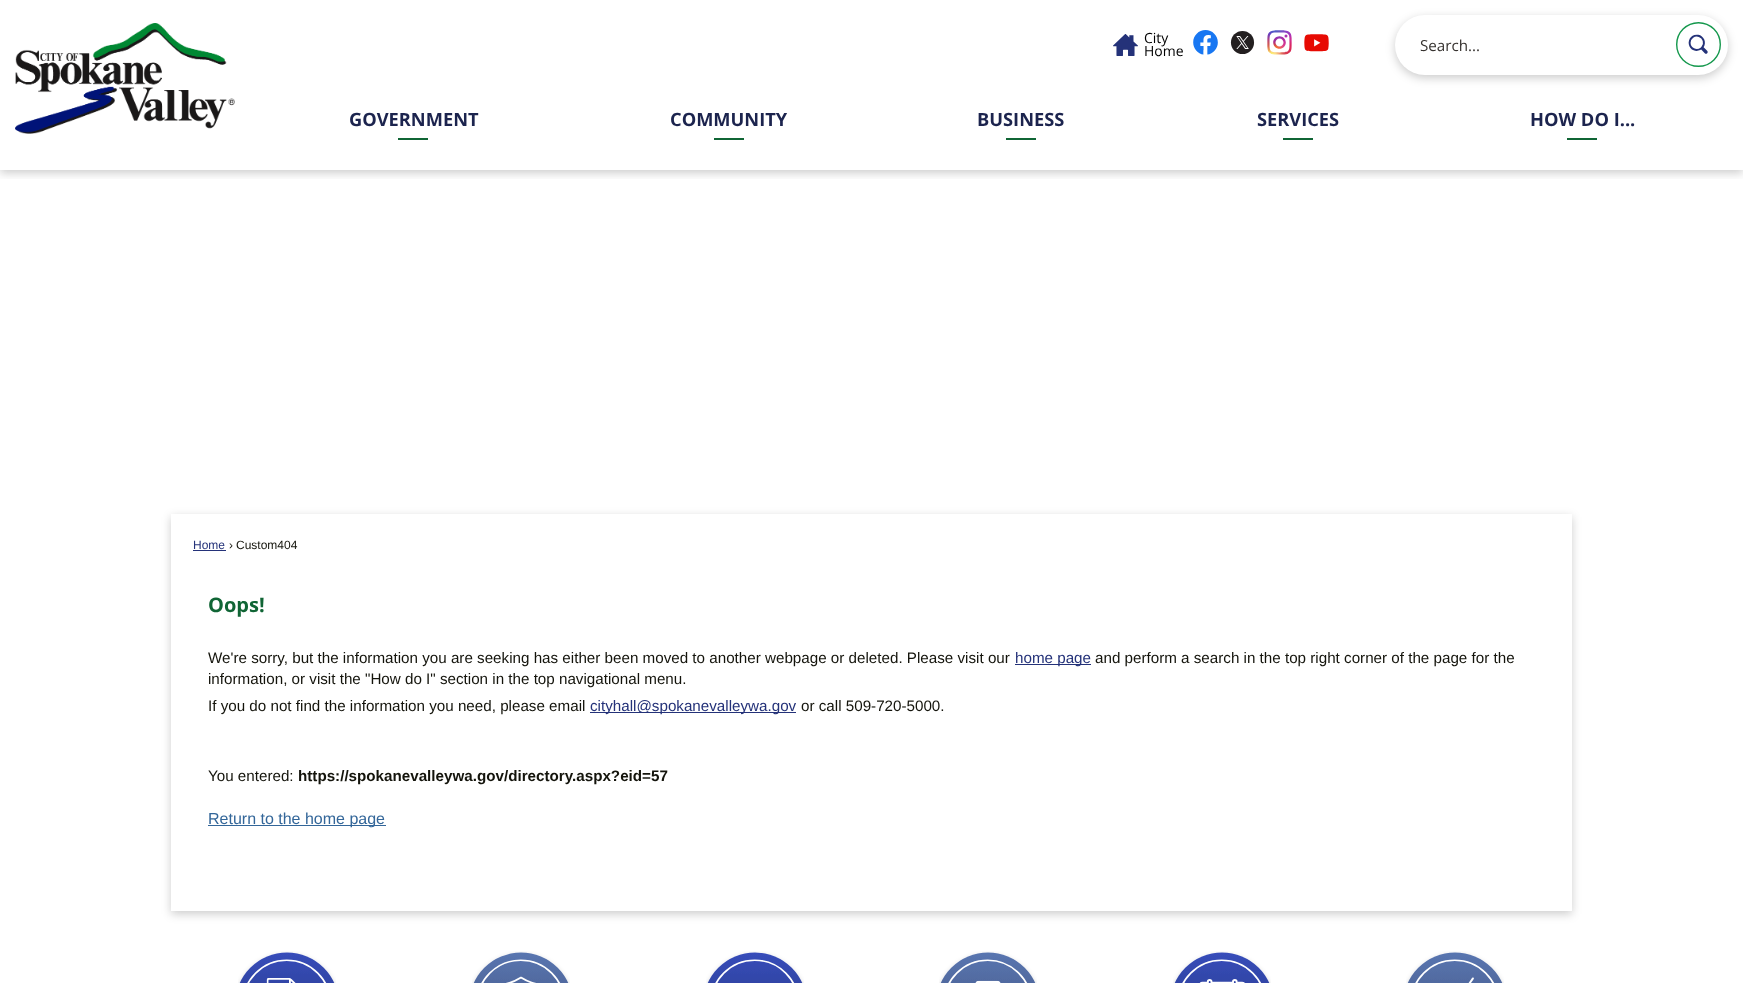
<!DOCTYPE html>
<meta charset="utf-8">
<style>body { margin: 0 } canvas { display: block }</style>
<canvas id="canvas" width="1743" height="983"></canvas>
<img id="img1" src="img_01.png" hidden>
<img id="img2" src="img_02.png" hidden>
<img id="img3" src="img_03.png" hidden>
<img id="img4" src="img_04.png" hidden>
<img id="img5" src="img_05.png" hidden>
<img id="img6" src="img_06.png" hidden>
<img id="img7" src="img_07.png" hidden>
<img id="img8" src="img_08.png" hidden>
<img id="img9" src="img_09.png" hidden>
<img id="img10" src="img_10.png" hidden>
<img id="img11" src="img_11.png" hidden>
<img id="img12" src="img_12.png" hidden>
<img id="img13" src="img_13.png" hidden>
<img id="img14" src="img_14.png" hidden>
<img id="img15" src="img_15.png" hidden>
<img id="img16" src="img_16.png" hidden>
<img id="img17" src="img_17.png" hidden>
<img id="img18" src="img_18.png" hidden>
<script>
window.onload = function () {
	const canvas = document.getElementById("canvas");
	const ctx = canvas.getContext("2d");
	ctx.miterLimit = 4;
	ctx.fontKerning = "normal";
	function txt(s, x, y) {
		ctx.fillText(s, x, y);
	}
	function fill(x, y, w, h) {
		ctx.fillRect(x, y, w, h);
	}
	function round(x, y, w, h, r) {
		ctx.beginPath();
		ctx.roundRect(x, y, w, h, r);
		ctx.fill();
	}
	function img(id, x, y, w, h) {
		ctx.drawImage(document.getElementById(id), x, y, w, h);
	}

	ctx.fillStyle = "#FFFFFF";
	fill(0, 0, 1743, 983);
	ctx.save();
	ctx.beginPath();
	ctx.rect(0, 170, 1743, 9);
	ctx.clip();
	ctx.fillStyle = "rgba(0, 0, 0, 0.2)";
	ctx.filter = "blur(5px)";
	ctx.beginPath();
	ctx.rect(0, 3, 1743, 170);
	ctx.fill();
	ctx.filter = "none";
	ctx.restore();
	img("img1", 15, 23, 220, 111);
	img("img2", 1113, 34, 25, 22);
	img("img3", 1193, 30, 25, 25);
	img("img4", 1230, 31, 25, 23);
	img("img5", 1267, 30, 25, 25);
	img("img6", 1304, 34, 25, 18);
	ctx.fillStyle = "rgba(0, 0, 0, 0.2)";
	ctx.filter = "blur(5px)";
	ctx.beginPath();
	ctx.roundRect(1395, 18, 333, 60, 30);
	ctx.fill();
	ctx.filter = "none";
	ctx.fillStyle = "#FFFFFF";
	round(1395, 15, 333, 60, 30);
	img("img7", 1676, 22, 45, 45);
	ctx.fillStyle = "#106535";
	fill(398, 138, 30, 2);
	fill(714, 138, 30, 2);
	fill(1006, 138, 30, 2);
	fill(1283, 138, 30, 2);
	fill(1567, 138, 30, 2);
	ctx.save();
	ctx.beginPath();
	ctx.moveTo(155, 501);
	ctx.lineTo(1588, 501);
	ctx.lineTo(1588, 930);
	ctx.lineTo(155, 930);
	ctx.closePath();
	ctx.moveTo(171, 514);
	ctx.lineTo(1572, 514);
	ctx.lineTo(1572, 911);
	ctx.lineTo(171, 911);
	ctx.closePath();
	ctx.clip("evenodd");
	ctx.fillStyle = "rgba(0, 0, 0, 0.2)";
	ctx.filter = "blur(5px)";
	ctx.beginPath();
	ctx.rect(171, 517, 1401, 397);
	ctx.fill();
	ctx.filter = "none";
	ctx.restore();
	ctx.fillStyle = "#243279";
	fill(193, 550, 33, 1);
	fill(1015, 664, 76, 1);
	fill(590, 712, 206, 1);
	ctx.fillStyle = "#336699";
	fill(208, 825, 178, 1);
	img("img8", 238, 951, 98, 32);
	img("img9", 266, 978, 30, 5);
	img("img10", 472, 951, 98, 32);
	img("img11", 506, 976, 30, 7);
	img("img12", 706, 951, 98, 32);
	img("img13", 939, 951, 98, 32);
	img("img14", 975, 980, 26, 3);
	img("img15", 1173, 951, 98, 32);
	img("img16", 1199, 979, 46, 4);
	img("img17", 1406, 951, 98, 32);
	img("img18", 1468, 977, 6, 6);
	ctx.font = "14px Open Sans";
	ctx.fillStyle = "#000000";
	txt("City", 1144, 43);
	txt("Home", 1144, 56);
	ctx.font = "15.2px Open Sans";
	ctx.fillStyle = "#373330";
	txt("Search...", 1420, 51);
	ctx.font = "bold 18.25px Open Sans";
	ctx.fillStyle = "#1C244E";
	txt("GOVERNMENT", 349, 126);
	txt("COMMUNITY", 670, 126);
	txt("BUSINESS", 977, 126);
	txt("SERVICES", 1257, 126);
	txt("HOW DO I...", 1530, 126);
	ctx.font = "12px Liberation Sans";
	ctx.fillStyle = "#243279";
	txt("Home", 193, 549);
	ctx.fillStyle = "#14140C";
	txt("›", 229, 549);
	txt("Custom404", 236, 549);
	ctx.font = "bold 20px Open Sans";
	ctx.fillStyle = "#106535";
	txt("Oops!", 208, 612);
	ctx.font = "15.2px Liberation Sans";
	ctx.fillStyle = "#14140C";
	txt("We're sorry, but the information you are seeking has either been moved to another webpage or deleted. Please visit our", 208, 663);
	ctx.fillStyle = "#243279";
	txt("home page", 1015, 663);
	ctx.fillStyle = "#14140C";
	txt("and perform a search in the top right corner of the page for the", 1095, 663);
	txt("information, or visit the \"How do I\" section in the top navigational menu.", 208, 684);
	txt("If you do not find the information you need, please email", 208, 711);
	ctx.fillStyle = "#243279";
	txt("cityhall@spokanevalleywa.gov", 590, 711);
	ctx.fillStyle = "#14140C";
	txt("or call 509-720-5000.", 801, 711);
	txt("You entered:", 208, 781);
	ctx.font = "bold 15.2px Liberation Sans";
	txt("https://spokanevalleywa.gov/directory.aspx?eid=57", 298, 781);
	ctx.font = "16px Liberation Sans";
	ctx.fillStyle = "#336699";
	txt("Return to the home page", 208, 824);
};
</script>
